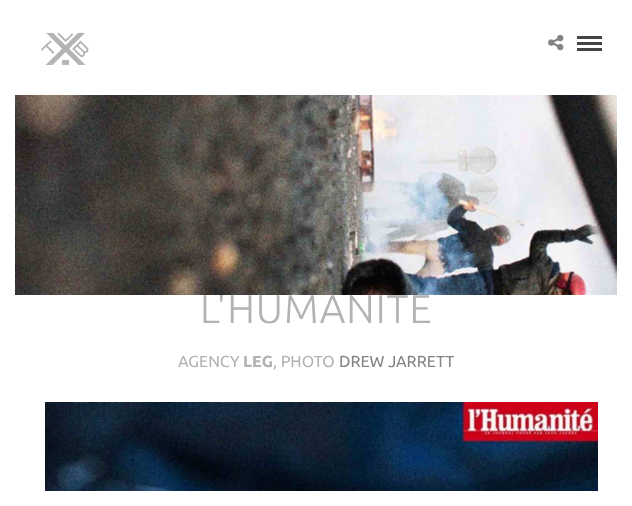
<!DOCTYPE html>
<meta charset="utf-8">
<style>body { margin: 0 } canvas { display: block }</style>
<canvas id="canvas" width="632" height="506"></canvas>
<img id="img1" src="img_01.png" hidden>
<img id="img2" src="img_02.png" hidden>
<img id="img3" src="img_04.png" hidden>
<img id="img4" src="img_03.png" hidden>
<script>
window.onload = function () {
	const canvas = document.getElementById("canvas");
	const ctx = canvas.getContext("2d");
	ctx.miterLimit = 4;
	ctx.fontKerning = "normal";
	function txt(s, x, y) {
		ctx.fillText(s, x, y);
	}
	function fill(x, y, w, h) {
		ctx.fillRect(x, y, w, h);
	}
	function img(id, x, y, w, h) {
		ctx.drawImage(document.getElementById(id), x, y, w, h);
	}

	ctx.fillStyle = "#FFFFFF";
	fill(0, 0, 632, 506);
	img("img1", 41, 32, 48, 33);
	img("img2", 548, 34, 16, 17);
	ctx.fillStyle = "#444444";
	fill(577, 36, 25, 3);
	fill(577, 42, 25, 3);
	fill(577, 48, 25, 3);
	img("img3", 45, 402, 553, 89);
	ctx.letterSpacing = "1px";
	ctx.font = "300 40px Ubuntu";
	ctx.fillStyle = "#B2B2B2";
	txt("L'HUMANITÉ", 200, 323);
	img("img4", 15, 95, 602, 200);
	ctx.letterSpacing = "0px";
	ctx.font = "16px Ubuntu";
	txt("AGENCY", 178, 367);
	ctx.font = "bold 16px Ubuntu";
	txt("LEG", 243, 367);
	ctx.font = "16px Ubuntu";
	txt(", PHOTO", 273, 367);
	ctx.fillStyle = "#848484";
	txt("DREW JARRETT", 339, 367);
};
</script>
